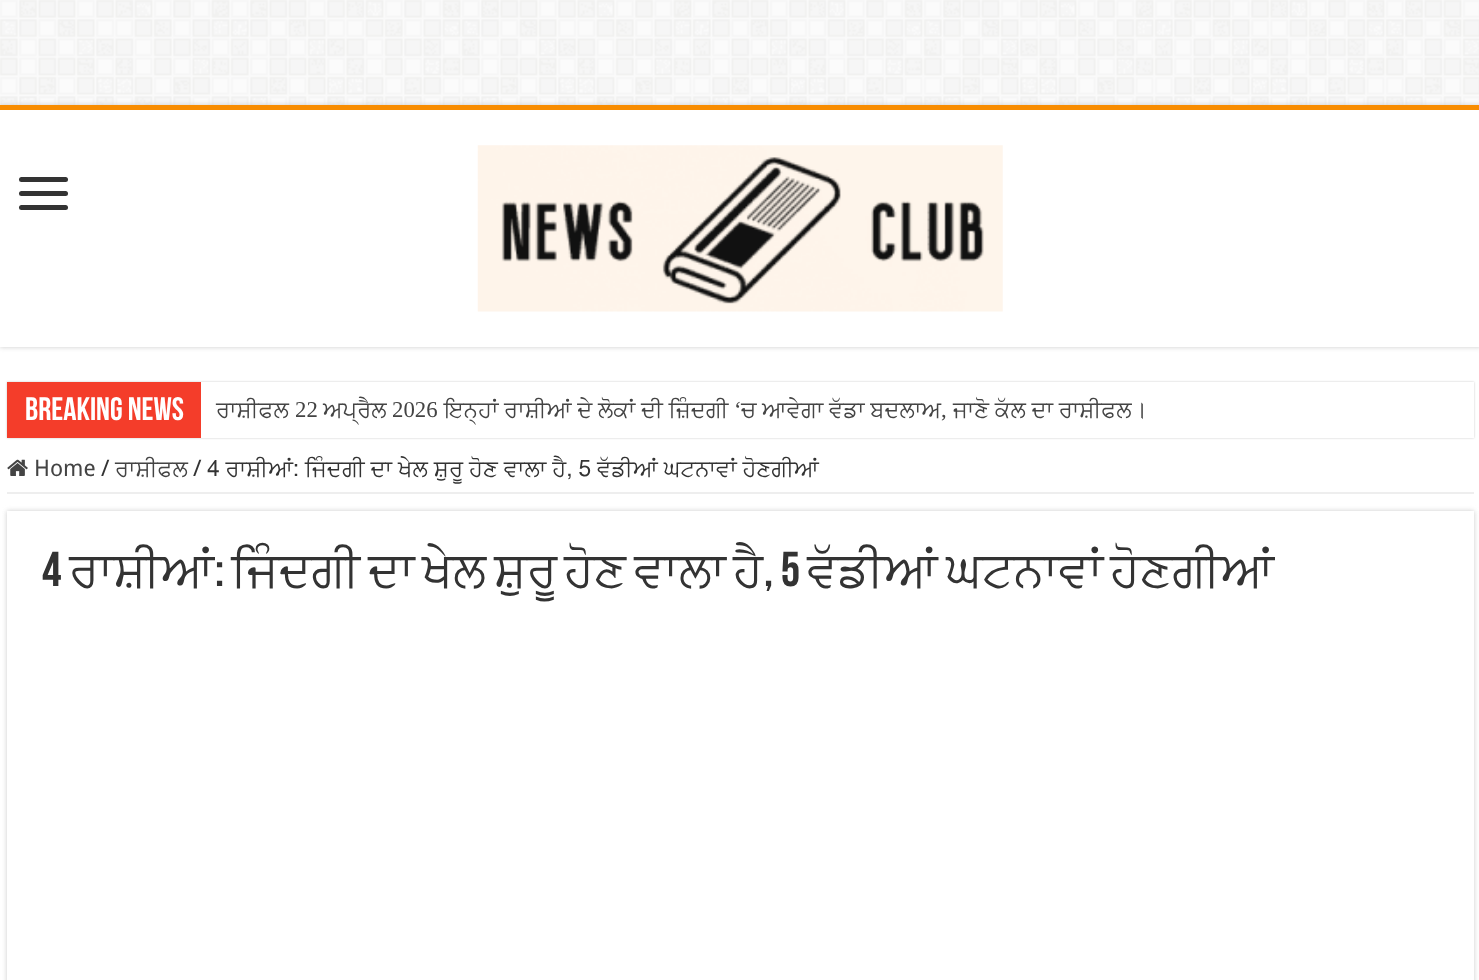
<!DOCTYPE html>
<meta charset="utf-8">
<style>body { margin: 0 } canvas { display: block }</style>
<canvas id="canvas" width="1479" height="980"></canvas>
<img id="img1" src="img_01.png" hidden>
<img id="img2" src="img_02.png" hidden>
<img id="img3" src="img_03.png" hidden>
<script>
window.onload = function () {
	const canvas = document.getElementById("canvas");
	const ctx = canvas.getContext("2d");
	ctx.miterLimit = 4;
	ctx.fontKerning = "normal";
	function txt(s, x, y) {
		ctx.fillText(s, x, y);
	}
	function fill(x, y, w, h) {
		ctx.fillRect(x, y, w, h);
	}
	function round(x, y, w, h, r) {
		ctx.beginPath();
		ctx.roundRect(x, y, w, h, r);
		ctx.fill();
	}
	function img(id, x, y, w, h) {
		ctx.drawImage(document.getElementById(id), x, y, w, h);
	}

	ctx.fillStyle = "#FFFFFF";
	fill(0, 0, 1479, 980);
	img("img1", 0, 0, 1479, 105);
	ctx.fillStyle = "#CACACA";
	ctx.filter = "blur(2.5px)";
	ctx.beginPath();
	ctx.rect(0, 105, 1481, 242);
	ctx.fill();
	ctx.filter = "none";
	ctx.fillStyle = "#FFFFFF";
	fill(0, 110, 1479, 237);
	ctx.fillStyle = "#F88C00";
	fill(0, 105, 1479, 5);
	ctx.fillStyle = "#333333";
	round(19, 177, 49, 5, 2.5);
	round(19, 191, 49, 5, 2.5);
	round(19, 205, 49, 5, 2.5);
	img("img2", 477, 145, 526, 167);
	ctx.fillStyle = "#CACACA";
	ctx.filter = "blur(1px)";
	ctx.beginPath();
	ctx.rect(7, 382, 1467, 56);
	ctx.fill();
	ctx.filter = "none";
	ctx.fillStyle = "#FFFFFF";
	fill(201, 382, 1273, 56);
	ctx.fillStyle = "#F43D2A";
	fill(7, 382, 194, 56);
	ctx.fillStyle = "#EEEEEE";
	fill(7, 492, 1467, 2);
	img("img3", 7, 459, 21, 17);
	ctx.fillStyle = "#CACACA";
	ctx.filter = "blur(2.5px)";
	ctx.beginPath();
	ctx.rect(7, 511, 1467, 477);
	ctx.fill();
	ctx.filter = "none";
	ctx.fillStyle = "#FFFFFF";
	fill(7, 511, 1467, 469);
	ctx.font = "bold 32.5px Bebas Neue";
	txt("Breaking News", 25, 420);
	ctx.font = "22.75px FreeSans";
	ctx.fillStyle = "#444444";
	txt("ਰਾਸ਼ੀਫਲ", 216, 417);
	ctx.font = "22.75px Liberation Serif";
	txt("22", 295, 417);
	ctx.font = "22.75px FreeSans";
	txt("ਅਪ੍ਰੈਲ", 323, 417);
	ctx.font = "22.75px Liberation Serif";
	txt("2026", 392, 417);
	ctx.font = "22.75px FreeSans";
	txt("ਇਨ੍ਹਾਂ ਰਾਸ਼ੀਆਂ ਦੇ ਲੋਕਾਂ ਦੀ ਜ਼ਿੰਦਗੀ", 444, 417);
	ctx.font = "22.75px Liberation Serif";
	txt("‘", 734, 417);
	ctx.font = "22.75px FreeSans";
	txt("ਚ ਆਵੇਗਾ ਵੱਡਾ ਬਦਲਾਅ", 741, 417);
	txt("ਜਾਣੋ ਕੱਲ ਦਾ ਰਾਸ਼ੀਫਲ।", 953, 417);
	ctx.font = "22.75px Liberation Serif";
	txt(",", 941, 417);
	ctx.font = "22.75px Droid Sans";
	txt("Home", 34, 476);
	ctx.fillStyle = "#333333";
	txt("/", 101, 476);
	ctx.font = "22.75px FreeSans";
	ctx.fillStyle = "#444444";
	txt("ਰਾਸ਼ੀਫਲ", 115, 476);
	ctx.font = "22.75px Droid Sans";
	ctx.fillStyle = "#333333";
	txt("/", 193, 476);
	ctx.wordSpacing = "0.25px";
	ctx.font = "22.75px FreeSans";
	txt("4 ਰਾਸ਼ੀਆਂ: ਜਿੰਦਗੀ ਦਾ ਖੇਲ ਸ਼ੁਰੂ ਹੋਣ ਵਾਲਾ ਹੈ, 5 ਵੱਡੀਆਂ ਘਟਨਾਵਾਂ ਹੋਣਗੀਆਂ", 207, 476);
	ctx.wordSpacing = "0px";
	ctx.font = "bold 49px Bebas Neue";
	txt("4", 42, 586);
	ctx.font = "49px FreeSans";
	txt("ਰਾਸ਼ੀਆਂ", 69, 586);
	txt("ਦਾ", 368, 586);
	txt("ਖੇਲ", 422, 586);
	txt("ਸ਼ੁਰੂ", 494, 586);
	txt("ਹੋਣ", 564, 586);
	txt("ਵਾਲਾ", 634, 586);
	txt("ਹੈ", 733, 586);
	ctx.font = "bold 49px Bebas Neue";
	txt(", 5", 764, 586);
	ctx.font = "49px FreeSans";
	txt("ਵੱਡੀਆਂ", 807, 586);
	txt("ਘਟਨਾਵਾਂ", 946, 586);
	txt("ਹੋਣਗੀਆਂ", 1110, 586);
	ctx.font = "bold 49px Bebas Neue";
	txt(":", 215, 586);
	ctx.font = "49px FreeSans";
	txt("ਜਿੰਦਗੀ", 231, 586);
};
</script>
